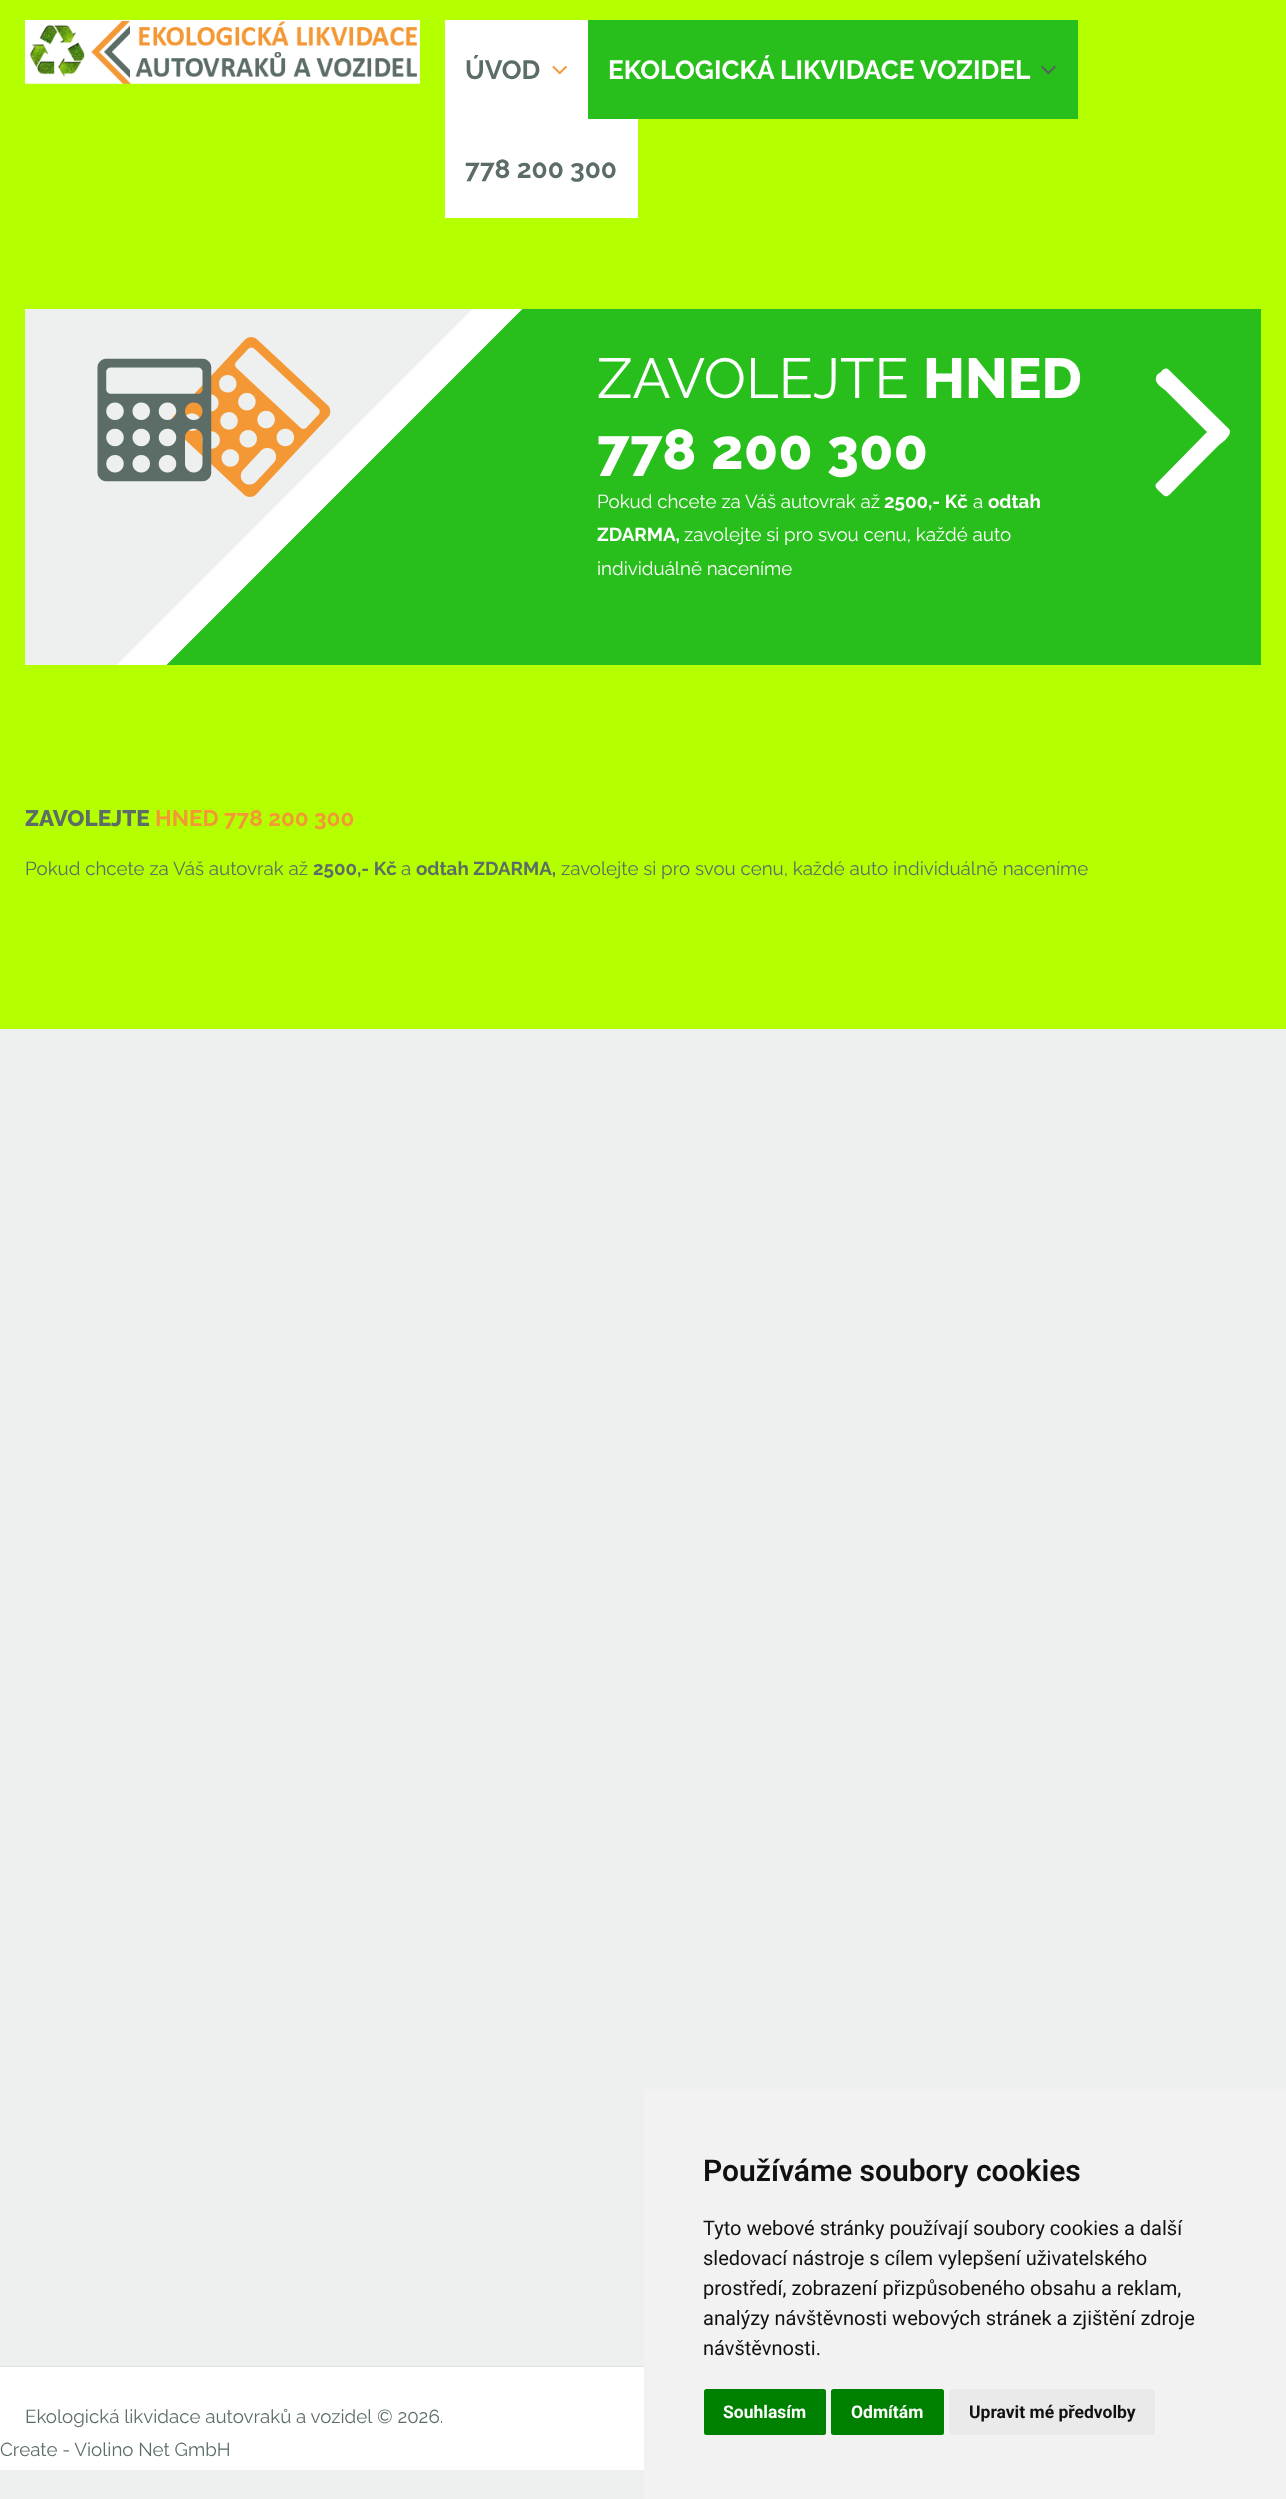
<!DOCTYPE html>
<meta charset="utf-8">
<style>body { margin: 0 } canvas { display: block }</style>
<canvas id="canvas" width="1286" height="2499"></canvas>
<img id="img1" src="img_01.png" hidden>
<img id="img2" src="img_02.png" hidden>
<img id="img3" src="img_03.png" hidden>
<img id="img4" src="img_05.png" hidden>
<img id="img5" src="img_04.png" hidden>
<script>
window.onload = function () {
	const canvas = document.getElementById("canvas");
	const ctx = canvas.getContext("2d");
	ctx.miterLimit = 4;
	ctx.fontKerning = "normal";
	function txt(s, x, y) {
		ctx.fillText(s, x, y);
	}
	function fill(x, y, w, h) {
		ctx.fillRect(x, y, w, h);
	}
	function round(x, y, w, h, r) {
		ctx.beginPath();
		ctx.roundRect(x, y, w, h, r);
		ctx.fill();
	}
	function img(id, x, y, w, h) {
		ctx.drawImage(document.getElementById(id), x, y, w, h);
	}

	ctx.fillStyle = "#EEF0EF";
	fill(0, 0, 1286, 2499);
	ctx.fillStyle = "#B4FF00";
	fill(0, 0, 1286, 1029);
	img("img1", 25, 20, 395, 64);
	ctx.fillStyle = "#FFFFFF";
	fill(445, 20, 143, 99);
	img("img2", 552, 65, 15, 10);
	ctx.fillStyle = "#28BF1C";
	fill(588, 20, 490, 99);
	img("img3", 1041, 65, 15, 10);
	ctx.fillStyle = "#FFFFFF";
	fill(445, 119, 193, 99);
	ctx.fillStyle = "#28BF1C";
	fill(166, 309, 1095, 356);
	ctx.save();
	ctx.beginPath();
	ctx.rect(25, 309, 1236, 356);
	ctx.clip();
	ctx.fillStyle = "#EEF0EF";
	ctx.beginPath();
	ctx.moveTo(-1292, -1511);
	ctx.lineTo(525, 306);
	ctx.lineTo(-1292, 2124);
	ctx.lineTo(-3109, 306);
	ctx.closePath();
	ctx.fill();
	ctx.beginPath();
	ctx.moveTo(-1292, -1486.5);
	ctx.lineTo(500.5, 306);
	ctx.lineTo(-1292, 2099);
	ctx.lineTo(-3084.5, 306);
	ctx.closePath();
	ctx.strokeStyle = "#FFFFFF";
	ctx.lineWidth = 35;
	ctx.stroke();
	ctx.restore();
	img("img4", 171, 337, 160, 160);
	img("img5", 97, 358, 115, 124);
	ctx.fillStyle = "#FFFFFF";
	ctx.beginPath();
	ctx.moveTo(1229, 429);
	ctx.bezierCurveTo(1234, 435, 1219, 445, 1219, 445);
	ctx.lineTo(1179, 485);
	ctx.bezierCurveTo(1166, 498, 1168, 500, 1158, 490);
	ctx.bezierCurveTo(1156, 488, 1154, 485, 1157, 483);
	ctx.lineTo(1207, 432);
	ctx.lineTo(1165, 390);
	ctx.bezierCurveTo(1165, 390, 1154, 383, 1156, 378);
	ctx.bezierCurveTo(1156, 375, 1159, 373, 1161, 372);
	ctx.bezierCurveTo(1163, 369, 1166, 367, 1169, 370);
	ctx.closePath();
	ctx.fill();
	ctx.fillStyle = "#F2F2F2";
	fill(644, 2089, 642, 410);
	ctx.fillStyle = "#008000";
	round(704, 2389, 122, 46, 2.5);
	round(831, 2389, 113, 46, 2.5);
	ctx.fillStyle = "#EAEAEA";
	round(949, 2389, 206, 46, 2.5);
	ctx.fillStyle = "#FFFFFF";
	fill(0, 2367, 644, 103);
	ctx.fillStyle = "#DEE2E0";
	fill(0, 2366, 644, 1);
	ctx.font = "bold 26.25px Raleway";
	ctx.fillStyle = "#5B6D66";
	txt("ÚVOD", 465, 79);
	ctx.fillStyle = "#FFFFFF";
	txt("EKOLOGICKÁ LIKVIDACE VOZIDEL", 608, 79);
	ctx.fillStyle = "#5B6D66";
	txt("778 200 300", 465, 178);
	ctx.font = "56.25px Raleway";
	ctx.fillStyle = "#FFFFFF";
	txt("ZAVOLEJTE", 597, 398);
	ctx.font = "800 56.25px Raleway";
	txt("HNED", 923, 398);
	txt("778", 597, 469);
	txt("200", 711, 469);
	txt("300", 827, 469);
	ctx.font = "18.75px Raleway";
	txt("Pokud chcete za Váš autovrak až", 597, 508);
	ctx.font = "bold 18.75px Raleway";
	txt("2500,- Kč", 884, 508);
	ctx.font = "18.75px Raleway";
	txt("a", 973, 508);
	ctx.font = "bold 18.75px Raleway";
	txt("odtah", 988, 508);
	txt("ZDARMA,", 597, 541);
	ctx.font = "18.75px Raleway";
	txt("zavolejte si pro svou cenu, každé auto", 684, 541);
	txt("individuálně naceníme", 597, 575);
	ctx.font = "800 22.5px Raleway";
	ctx.fillStyle = "#5B6D66";
	txt("ZAVOLEJTE", 25, 826);
	ctx.font = "bold 22.5px Raleway";
	ctx.fillStyle = "#F49835";
	txt("HNED 778 200 300", 155, 826);
	ctx.font = "18.75px Raleway";
	ctx.fillStyle = "#5B6D66";
	txt("Pokud chcete za Váš autovrak až", 25, 875);
	ctx.font = "bold 18.75px Raleway";
	txt("2500,- Kč", 313, 875);
	ctx.font = "18.75px Raleway";
	txt("a", 401, 875);
	ctx.font = "bold 18.75px Raleway";
	txt("odtah ZDARMA,", 416, 875);
	ctx.font = "18.75px Raleway";
	txt("zavolejte si pro svou cenu, každé auto individuálně naceníme", 561, 875);
	ctx.font = "600 30px Roboto";
	ctx.fillStyle = "#111111";
	txt("Používáme soubory cookies", 703, 2181);
	ctx.font = "20px Roboto";
	txt("Tyto webové stránky používají soubory cookies a další", 703, 2235);
	txt("sledovací nástroje s cílem vylepšení uživatelského", 703, 2265);
	txt("prostředí, zobrazení přizpůsobeného obsahu a reklam,", 703, 2295);
	txt("analýzy návštěvnosti webových stránek a zjištění zdroje", 703, 2325);
	txt("návštěvnosti.", 703, 2355);
	ctx.font = "bold 17.5px Roboto";
	ctx.fillStyle = "#FFFFFF";
	txt("Souhlasím", 723, 2418);
	txt("Odmítám", 851, 2418);
	ctx.fillStyle = "#111111";
	txt("Upravit mé předvolby", 969, 2418);
	ctx.font = "18.75px Raleway";
	ctx.fillStyle = "#5B6D66";
	txt("Ekologická likvidace autovraků a vozidel", 25, 2423);
	txt("© 2026.", 377, 2423);
	txt("Create - Violino Net GmbH", 0, 2456);
};
</script>
